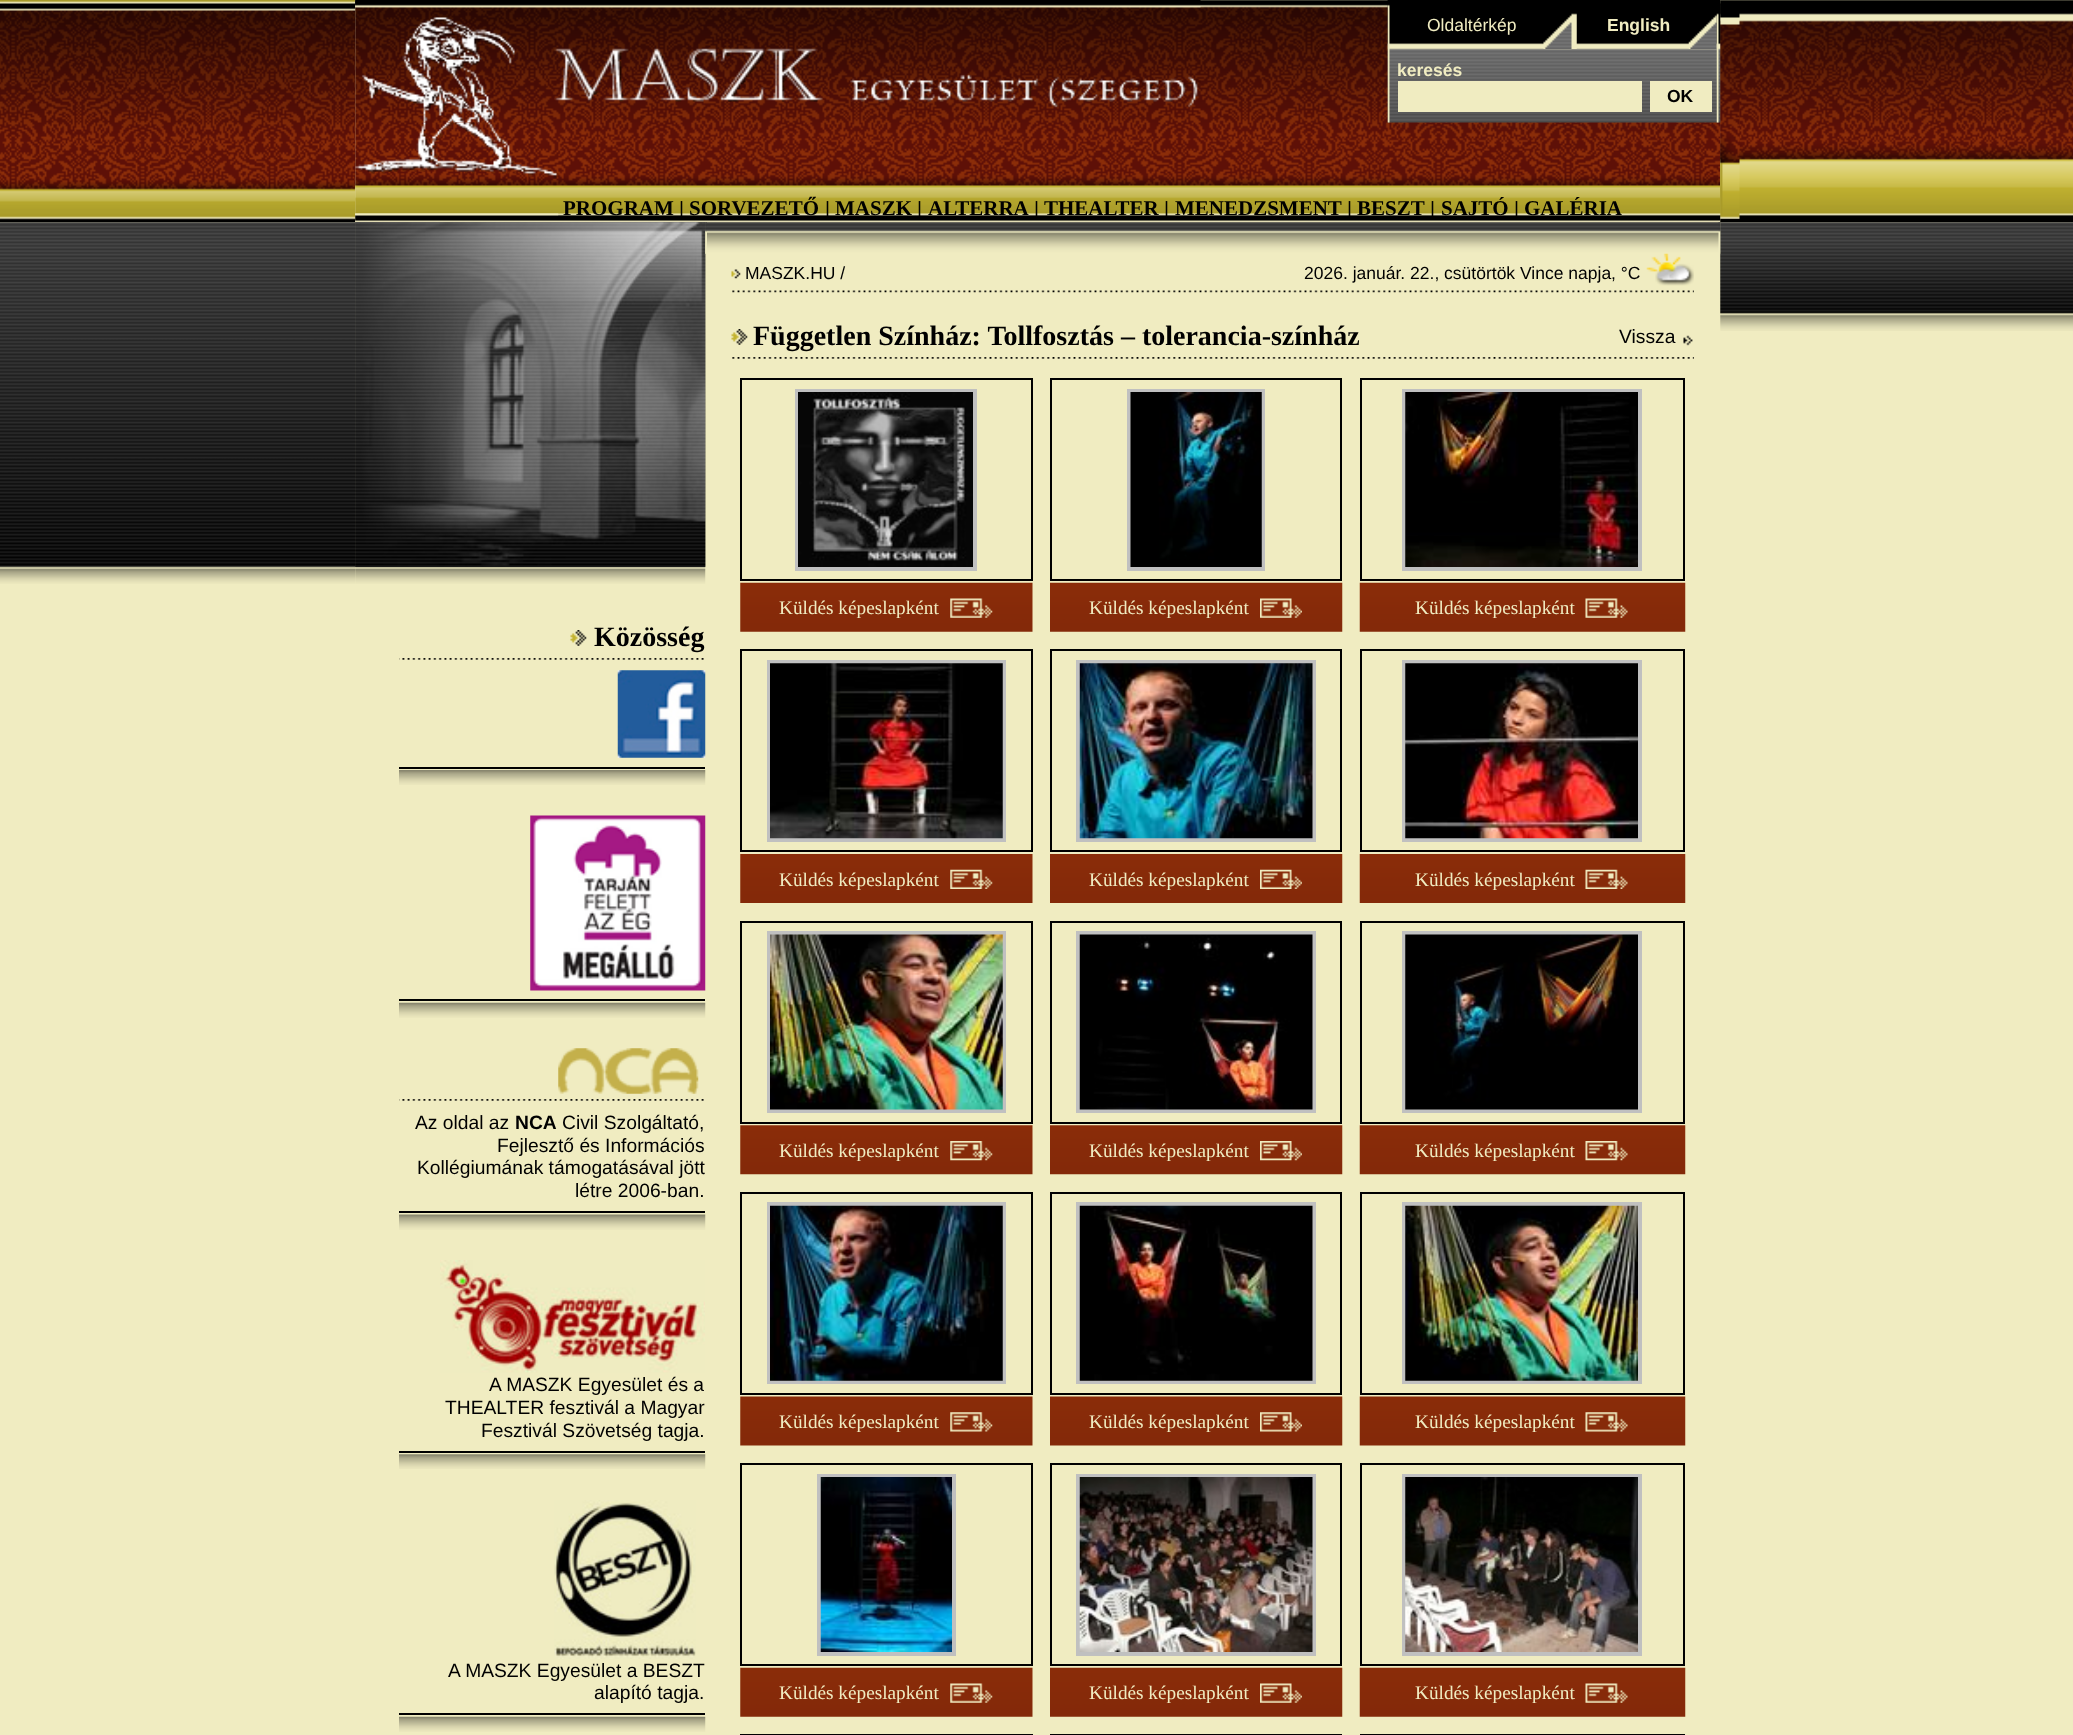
<!DOCTYPE html>
<meta charset="utf-8">
<style>body { margin: 0 } canvas { display: block }</style>
<canvas id="canvas" width="2073" height="1735"></canvas>
<img id="img1" src="img_01.png" hidden>
<img id="img2" src="img_02.png" hidden>
<img id="img3" src="img_03.png" hidden>
<img id="img4" src="img_10.png" hidden>
<img id="img5" src="img_11.png" hidden>
<img id="img6" src="img_04.png" hidden>
<img id="img7" src="img_05.png" hidden>
<img id="img8" src="img_06.png" hidden>
<img id="img9" src="img_07.png" hidden>
<img id="img10" src="img_08.png" hidden>
<img id="img11" src="img_09.png" hidden>
<img id="img12" src="img_12.png" hidden>
<img id="img13" src="img_13.png" hidden>
<img id="img14" src="img_27.png" hidden>
<img id="img15" src="img_14.png" hidden>
<img id="img16" src="img_15.png" hidden>
<img id="img17" src="img_16.png" hidden>
<img id="img18" src="img_17.png" hidden>
<img id="img19" src="img_18.png" hidden>
<img id="img20" src="img_19.png" hidden>
<img id="img21" src="img_20.png" hidden>
<img id="img22" src="img_21.png" hidden>
<img id="img23" src="img_22.png" hidden>
<img id="img24" src="img_23.png" hidden>
<img id="img25" src="img_24.png" hidden>
<img id="img26" src="img_25.png" hidden>
<img id="img27" src="img_26.png" hidden>
<img id="img28" src="img_28.png" hidden>
<img id="img29" src="img_75.png" hidden>
<img id="img30" src="img_29.png" hidden>
<img id="img31" src="img_30.png" hidden>
<img id="img32" src="img_31.png" hidden>
<img id="img33" src="img_32.png" hidden>
<img id="img34" src="img_33.png" hidden>
<img id="img35" src="img_34.png" hidden>
<img id="img36" src="img_35.png" hidden>
<img id="img37" src="img_36.png" hidden>
<img id="img38" src="img_37.png" hidden>
<img id="img39" src="img_38.png" hidden>
<img id="img40" src="img_39.png" hidden>
<img id="img41" src="img_40.png" hidden>
<img id="img42" src="img_41.png" hidden>
<img id="img43" src="img_42.png" hidden>
<img id="img44" src="img_43.png" hidden>
<img id="img45" src="img_44.png" hidden>
<img id="img46" src="img_45.png" hidden>
<img id="img47" src="img_46.png" hidden>
<img id="img48" src="img_47.png" hidden>
<img id="img49" src="img_48.png" hidden>
<img id="img50" src="img_49.png" hidden>
<img id="img51" src="img_50.png" hidden>
<img id="img52" src="img_51.png" hidden>
<img id="img53" src="img_52.png" hidden>
<img id="img54" src="img_53.png" hidden>
<img id="img55" src="img_54.png" hidden>
<img id="img56" src="img_55.png" hidden>
<img id="img57" src="img_56.png" hidden>
<img id="img58" src="img_57.png" hidden>
<img id="img59" src="img_58.png" hidden>
<img id="img60" src="img_59.png" hidden>
<img id="img61" src="img_60.png" hidden>
<img id="img62" src="img_61.png" hidden>
<img id="img63" src="img_62.png" hidden>
<img id="img64" src="img_63.png" hidden>
<img id="img65" src="img_64.png" hidden>
<img id="img66" src="img_65.png" hidden>
<img id="img67" src="img_66.png" hidden>
<img id="img68" src="img_67.png" hidden>
<img id="img69" src="img_68.png" hidden>
<img id="img70" src="img_69.png" hidden>
<img id="img71" src="img_70.png" hidden>
<img id="img72" src="img_71.png" hidden>
<img id="img73" src="img_72.png" hidden>
<img id="img74" src="img_73.png" hidden>
<img id="img75" src="img_74.png" hidden>
<script>
window.onload = function () {
	const canvas = document.getElementById("canvas");
	const ctx = canvas.getContext("2d");
	ctx.miterLimit = 4;
	ctx.fontKerning = "normal";
	function txt(s, x, y) {
		ctx.fillText(s, x, y);
	}
	function fill(x, y, w, h) {
		ctx.fillRect(x, y, w, h);
	}
	function img(id, x, y, w, h) {
		ctx.drawImage(document.getElementById(id), x, y, w, h);
	}

	ctx.fillStyle = "#F0ECC1";
	fill(0, 0, 2073, 1735);
	img("img1", 0, 0, 356, 223);
	img("img2", 355, 0, 1366, 223);
	img("img3", 355, 0, 846, 123);
	img("img4", 1720, 0, 353, 223);
	img("img5", 1720, 3, 20, 216);
	img("img6", 1387, 0, 334, 123);
	img("img7", 1387, 0, 3, 123);
	img("img8", 1543, 13, 34, 36);
	img("img9", 1688, 15, 29, 34);
	img("img10", 1716, 13, 3, 110);
	fill(1398, 81, 244, 31);
	fill(1650, 81, 62, 31);
	img("img11", 355, 122, 204, 94);
	img("img12", 0, 222, 356, 362);
	img("img13", 355, 222, 351, 362);
	img("img14", 705, 222, 1016, 32);
	img("img15", 355, 222, 351, 345);
	img("img16", 399, 658, 305, 2);
	img("img17", 570, 630, 17, 16);
	ctx.fillStyle = "#000000";
	fill(399, 767, 306, 2);
	img("img18", 617, 670, 89, 88);
	img("img19", 399, 770, 307, 15);
	fill(399, 999, 306, 2);
	img("img20", 530, 815, 176, 176);
	img("img21", 399, 1002, 307, 16);
	img("img16", 399, 1099, 305, 2);
	img("img22", 558, 1048, 141, 46);
	fill(399, 1211, 306, 2);
	img("img23", 399, 1214, 307, 16);
	fill(399, 1451, 306, 2);
	img("img24", 440, 1260, 265, 113);
	img("img25", 399, 1454, 307, 15);
	fill(399, 1713, 306, 2);
	img("img26", 554, 1500, 142, 159);
	img("img27", 399, 1716, 307, 16);
	img("img28", 705, 222, 2, 32);
	img("img29", 1720, 222, 353, 109);
	img("img30", 1718, 222, 3, 32);
	img("img31", 732, 290, 962, 3);
	img("img32", 731, 269, 10, 10);
	img("img33", 1646, 253, 48, 33);
	img("img34", 732, 357, 962, 2);
	img("img35", 731, 329, 17, 16);
	img("img36", 1683, 335, 10, 11);
	ctx.strokeStyle = "#000000";
	ctx.lineWidth = 2;
	ctx.strokeRect(741, 379, 291, 201);
	ctx.strokeStyle = "#C0C0C0";
	ctx.lineWidth = 4;
	ctx.strokeRect(797, 391, 178, 178);
	img("img37", 798, 392, 175, 175);
	img("img38", 740, 582, 293, 50);
	img("img39", 950, 598, 43, 20);
	ctx.strokeStyle = "#000000";
	ctx.lineWidth = 2;
	ctx.strokeRect(1051, 379, 290, 201);
	ctx.strokeStyle = "#C0C0C0";
	ctx.lineWidth = 4;
	ctx.strokeRect(1129, 391, 134, 178);
	img("img40", 1130, 392, 132, 175);
	img("img41", 1050, 582, 293, 50);
	img("img42", 1260, 598, 42, 20);
	ctx.strokeStyle = "#000000";
	ctx.lineWidth = 2;
	ctx.strokeRect(1361, 379, 323, 201);
	ctx.strokeStyle = "#C0C0C0";
	ctx.lineWidth = 4;
	ctx.strokeRect(1404, 391, 236, 178);
	img("img43", 1405, 392, 233, 175);
	img("img44", 1359, 582, 327, 50);
	img("img45", 1585, 598, 43, 20);
	ctx.strokeStyle = "#000000";
	ctx.lineWidth = 2;
	ctx.strokeRect(741, 650, 291, 201);
	ctx.strokeStyle = "#C0C0C0";
	ctx.lineWidth = 4;
	ctx.strokeRect(769, 662, 235, 178);
	img("img46", 770, 663, 233, 176);
	img("img47", 740, 854, 293, 49);
	img("img48", 950, 869, 43, 20);
	ctx.strokeStyle = "#000000";
	ctx.lineWidth = 2;
	ctx.strokeRect(1051, 650, 290, 201);
	ctx.strokeStyle = "#C0C0C0";
	ctx.lineWidth = 4;
	ctx.strokeRect(1078, 662, 236, 178);
	img("img49", 1079, 663, 234, 176);
	img("img50", 1050, 854, 293, 49);
	img("img51", 1260, 869, 42, 20);
	ctx.strokeStyle = "#000000";
	ctx.lineWidth = 2;
	ctx.strokeRect(1361, 650, 323, 201);
	ctx.strokeStyle = "#C0C0C0";
	ctx.lineWidth = 4;
	ctx.strokeRect(1404, 662, 236, 178);
	img("img52", 1405, 663, 233, 176);
	img("img53", 1359, 854, 327, 49);
	img("img54", 1585, 869, 43, 20);
	ctx.strokeStyle = "#000000";
	ctx.lineWidth = 2;
	ctx.strokeRect(741, 922, 291, 201);
	ctx.strokeStyle = "#C0C0C0";
	ctx.lineWidth = 4;
	ctx.strokeRect(769, 933, 235, 178);
	img("img55", 770, 934, 233, 176);
	img("img56", 740, 1125, 293, 50);
	img("img57", 950, 1141, 43, 20);
	ctx.strokeStyle = "#000000";
	ctx.lineWidth = 2;
	ctx.strokeRect(1051, 922, 290, 201);
	ctx.strokeStyle = "#C0C0C0";
	ctx.lineWidth = 4;
	ctx.strokeRect(1078, 933, 236, 178);
	img("img58", 1079, 934, 234, 176);
	img("img59", 1050, 1125, 293, 50);
	img("img60", 1260, 1141, 42, 20);
	ctx.strokeStyle = "#000000";
	ctx.lineWidth = 2;
	ctx.strokeRect(1361, 922, 323, 201);
	ctx.strokeStyle = "#C0C0C0";
	ctx.lineWidth = 4;
	ctx.strokeRect(1404, 933, 236, 178);
	img("img61", 1405, 934, 233, 176);
	img("img62", 1359, 1125, 327, 50);
	img("img63", 1585, 1141, 43, 20);
	ctx.strokeStyle = "#000000";
	ctx.lineWidth = 2;
	ctx.strokeRect(741, 1193, 291, 201);
	ctx.strokeStyle = "#C0C0C0";
	ctx.lineWidth = 4;
	ctx.strokeRect(769, 1204, 235, 178);
	img("img64", 770, 1205, 233, 176);
	img("img65", 740, 1396, 293, 50);
	img("img66", 950, 1412, 43, 20);
	ctx.strokeStyle = "#000000";
	ctx.lineWidth = 2;
	ctx.strokeRect(1051, 1193, 290, 201);
	ctx.strokeStyle = "#C0C0C0";
	ctx.lineWidth = 4;
	ctx.strokeRect(1078, 1204, 236, 178);
	img("img67", 1079, 1205, 234, 176);
	img("img68", 1050, 1396, 293, 50);
	img("img69", 1260, 1412, 42, 20);
	ctx.strokeStyle = "#000000";
	ctx.lineWidth = 2;
	ctx.strokeRect(1361, 1193, 323, 201);
	ctx.strokeStyle = "#C0C0C0";
	ctx.lineWidth = 4;
	ctx.strokeRect(1404, 1204, 236, 178);
	img("img70", 1405, 1205, 233, 176);
	img("img71", 1359, 1396, 327, 50);
	img("img72", 1585, 1412, 43, 20);
	ctx.strokeStyle = "#000000";
	ctx.lineWidth = 2;
	ctx.strokeRect(741, 1464, 291, 201);
	ctx.strokeStyle = "#C0C0C0";
	ctx.lineWidth = 4;
	ctx.strokeRect(819, 1476, 135, 178);
	img("img73", 820, 1477, 132, 175);
	img("img38", 740, 1667, 293, 50);
	img("img39", 950, 1683, 43, 20);
	ctx.strokeStyle = "#000000";
	ctx.lineWidth = 2;
	ctx.strokeRect(1051, 1464, 290, 201);
	ctx.strokeStyle = "#C0C0C0";
	ctx.lineWidth = 4;
	ctx.strokeRect(1078, 1476, 236, 178);
	img("img74", 1079, 1477, 234, 175);
	img("img41", 1050, 1667, 293, 50);
	img("img42", 1260, 1683, 42, 20);
	ctx.strokeStyle = "#000000";
	ctx.lineWidth = 2;
	ctx.strokeRect(1361, 1464, 323, 201);
	ctx.strokeStyle = "#C0C0C0";
	ctx.lineWidth = 4;
	ctx.strokeRect(1404, 1476, 236, 178);
	img("img75", 1405, 1477, 233, 175);
	img("img44", 1359, 1667, 327, 50);
	img("img45", 1585, 1683, 43, 20);
	ctx.strokeStyle = "#000000";
	ctx.lineWidth = 2;
	ctx.strokeRect(741, 1735, 291, 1);
	ctx.strokeRect(1051, 1735, 290, 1);
	ctx.strokeRect(1361, 1735, 323, 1);
	ctx.font = "17.5px Liberation Sans";
	ctx.fillStyle = "#F0ECC1";
	txt("Oldaltérkép", 1427, 31);
	ctx.font = "bold 17.5px Liberation Sans";
	txt("English", 1607, 31);
	txt("keresés", 1397, 76);
	ctx.fillStyle = "#000000";
	txt("OK", 1667, 102);
	ctx.font = "bold 21px Liberation Serif";
	txt("PROGRAM", 563, 215);
	ctx.font = "19.25px Liberation Sans";
	txt("|", 679, 215);
	ctx.font = "bold 21px Liberation Serif";
	txt("SORVEZETŐ", 689, 215);
	ctx.font = "19.25px Liberation Sans";
	txt("|", 825, 215);
	ctx.font = "bold 21px Liberation Serif";
	txt("MASZK", 835, 215);
	ctx.font = "19.25px Liberation Sans";
	txt("|", 917, 215);
	ctx.font = "bold 21px Liberation Serif";
	txt("ALTERRA", 928, 215);
	ctx.font = "19.25px Liberation Sans";
	txt("|", 1034, 215);
	ctx.font = "bold 21px Liberation Serif";
	txt("THEALTER", 1044, 215);
	ctx.font = "19.25px Liberation Sans";
	txt("|", 1164, 215);
	ctx.font = "bold 21px Liberation Serif";
	txt("MENEDZSMENT", 1175, 215);
	ctx.font = "19.25px Liberation Sans";
	txt("|", 1347, 215);
	ctx.font = "bold 21px Liberation Serif";
	txt("BESZT", 1357, 215);
	ctx.font = "19.25px Liberation Sans";
	txt("|", 1430, 215);
	ctx.font = "bold 21px Liberation Serif";
	txt("SAJTÓ", 1441, 215);
	ctx.font = "19.25px Liberation Sans";
	txt("|", 1514, 215);
	ctx.font = "bold 21px Liberation Serif";
	txt("GALÉRIA", 1524, 215);
	ctx.font = "bold 28px Liberation Serif";
	txt("Közösség", 594, 646);
	ctx.font = "19.25px Liberation Sans";
	txt("Az oldal az", 415, 1129);
	ctx.font = "bold 19.25px Liberation Sans";
	txt("NCA", 515, 1129);
	ctx.font = "19.25px Liberation Sans";
	txt("Civil Szolgáltató,", 562, 1129);
	txt("Fejlesztő és Információs", 497, 1152);
	txt("Kollégiumának támogatásával jött", 417, 1174);
	txt("létre 2006-ban.", 575, 1197);
	txt("A MASZK Egyesület és a", 489, 1391);
	txt("THEALTER fesztivál a Magyar", 445, 1414);
	txt("Fesztivál Szövetség tagja.", 481, 1437);
	txt("A MASZK Egyesület a BESZT", 448, 1677);
	txt("alapító tagja.", 594, 1699);
	ctx.font = "17.5px Liberation Sans";
	txt("MASZK.HU /", 745, 279);
	txt("2026. január. 22., csütörtök Vince napja, °C", 1304, 279);
	ctx.font = "bold 28px Liberation Serif";
	txt("Független Színház: Tollfosztás – tolerancia-színház", 753, 345);
	ctx.font = "19.25px Liberation Sans";
	txt("Vissza", 1619, 343);
	ctx.font = "19.25px Liberation Serif";
	ctx.fillStyle = "#F0ECC1";
	txt("Küldés képeslapként", 779, 614);
	txt("Küldés képeslapként", 1089, 614);
	txt("Küldés képeslapként", 1415, 614);
	txt("Küldés képeslapként", 779, 886);
	txt("Küldés képeslapként", 1089, 886);
	txt("Küldés képeslapként", 1415, 886);
	txt("Küldés képeslapként", 779, 1157);
	txt("Küldés képeslapként", 1089, 1157);
	txt("Küldés képeslapként", 1415, 1157);
	txt("Küldés képeslapként", 779, 1428);
	txt("Küldés képeslapként", 1089, 1428);
	txt("Küldés képeslapként", 1415, 1428);
	txt("Küldés képeslapként", 779, 1699);
	txt("Küldés képeslapként", 1089, 1699);
	txt("Küldés képeslapként", 1415, 1699);
};
</script>
